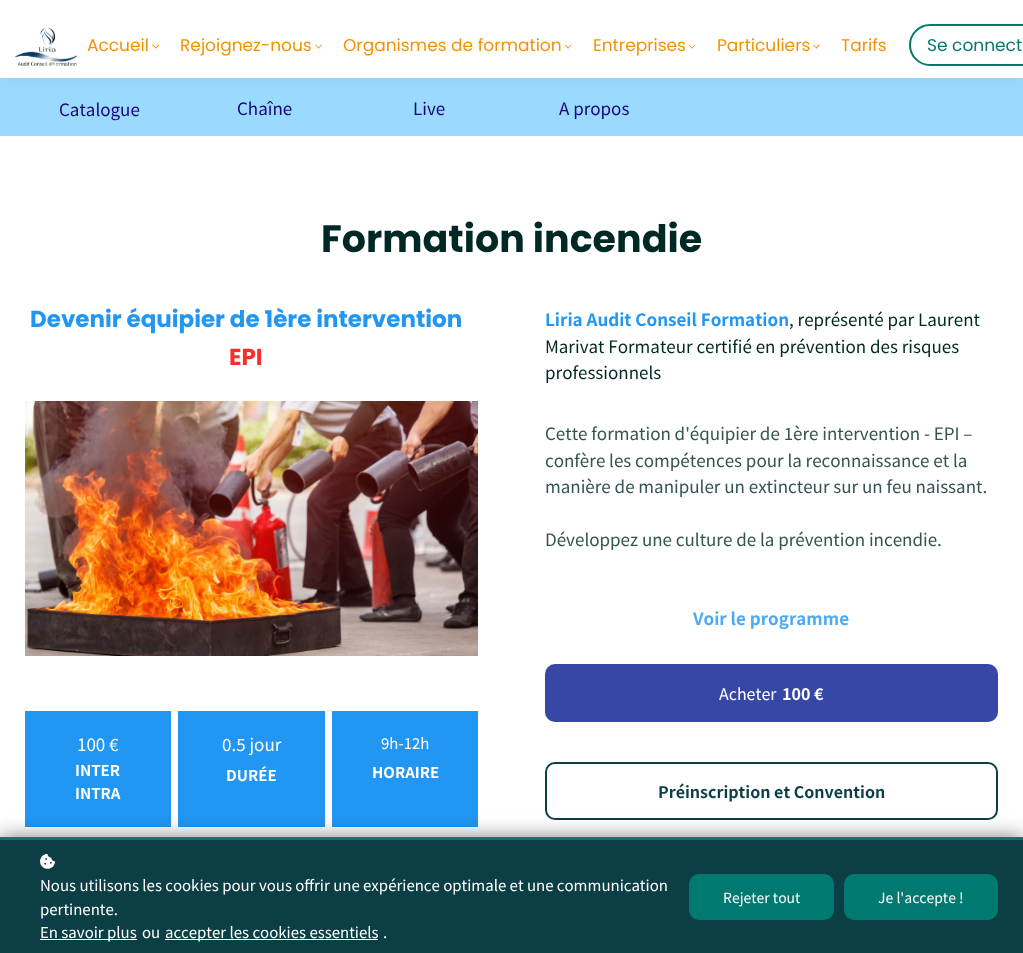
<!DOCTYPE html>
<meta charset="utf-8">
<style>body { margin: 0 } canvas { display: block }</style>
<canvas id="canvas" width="1023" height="953"></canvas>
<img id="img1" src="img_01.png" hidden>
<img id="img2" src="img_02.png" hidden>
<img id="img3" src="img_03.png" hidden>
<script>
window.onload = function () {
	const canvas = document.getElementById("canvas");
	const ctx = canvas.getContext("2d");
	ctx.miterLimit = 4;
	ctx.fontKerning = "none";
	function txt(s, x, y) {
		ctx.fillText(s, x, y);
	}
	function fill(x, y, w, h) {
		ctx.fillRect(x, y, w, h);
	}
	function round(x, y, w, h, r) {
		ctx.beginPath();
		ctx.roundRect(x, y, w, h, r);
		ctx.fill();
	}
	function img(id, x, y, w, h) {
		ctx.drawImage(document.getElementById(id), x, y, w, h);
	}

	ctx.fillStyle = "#FFFFFF";
	fill(0, 0, 1023, 953);
	ctx.fillStyle = "#9BDAFF";
	fill(0, 78, 1023, 58);
	ctx.fillStyle = "rgba(0, 0, 0, 0.05)";
	ctx.filter = "blur(7.5px)";
	ctx.beginPath();
	ctx.rect(0, 0, 1023, 78);
	ctx.fill();
	ctx.filter = "none";
	ctx.fillStyle = "#FFFFFF";
	fill(0, 0, 1023, 78);
	img("img1", 15, 27, 63, 39);
	ctx.fillStyle = "#F39204";
	ctx.beginPath();
	ctx.moveTo(159.5, 45);
	ctx.lineTo(156, 48.5);
	ctx.lineTo(155, 48);
	ctx.lineTo(158.5, 44.5);
	ctx.closePath();
	ctx.fill();
	ctx.beginPath();
	ctx.moveTo(156.5, 48);
	ctx.lineTo(156, 48.5);
	ctx.lineTo(152, 45);
	ctx.lineTo(153, 44.5);
	ctx.closePath();
	ctx.fill();
	ctx.beginPath();
	ctx.moveTo(322, 45);
	ctx.lineTo(318.5, 48.5);
	ctx.lineTo(317.5, 48);
	ctx.lineTo(321.5, 44.5);
	ctx.closePath();
	ctx.fill();
	ctx.beginPath();
	ctx.moveTo(319, 48);
	ctx.lineTo(318.5, 48.5);
	ctx.lineTo(315, 45);
	ctx.lineTo(315.5, 44.5);
	ctx.closePath();
	ctx.fill();
	ctx.beginPath();
	ctx.moveTo(571.5, 45);
	ctx.lineTo(568, 48.5);
	ctx.lineTo(567.5, 48);
	ctx.lineTo(571, 44.5);
	ctx.closePath();
	ctx.fill();
	ctx.beginPath();
	ctx.moveTo(569, 48);
	ctx.lineTo(568, 48.5);
	ctx.lineTo(564.5, 45);
	ctx.lineTo(565, 44.5);
	ctx.closePath();
	ctx.fill();
	ctx.beginPath();
	ctx.moveTo(695.5, 45);
	ctx.lineTo(692, 48.5);
	ctx.lineTo(691.5, 48);
	ctx.lineTo(695, 44.5);
	ctx.closePath();
	ctx.fill();
	ctx.beginPath();
	ctx.moveTo(692.5, 48);
	ctx.lineTo(692, 48.5);
	ctx.lineTo(688.5, 45);
	ctx.lineTo(689, 44.5);
	ctx.closePath();
	ctx.fill();
	ctx.beginPath();
	ctx.moveTo(820, 45);
	ctx.lineTo(816.5, 48.5);
	ctx.lineTo(815.5, 48);
	ctx.lineTo(819, 44.5);
	ctx.closePath();
	ctx.fill();
	ctx.beginPath();
	ctx.moveTo(817, 48);
	ctx.lineTo(816.5, 48.5);
	ctx.lineTo(813, 45);
	ctx.lineTo(813.5, 44.5);
	ctx.closePath();
	ctx.fill();
	ctx.beginPath();
	ctx.roundRect(910, 25, 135, 40, 20);
	ctx.strokeStyle = "#007970";
	ctx.lineWidth = 2;
	ctx.stroke();
	img("img2", 25, 401, 453, 255);
	ctx.fillStyle = "#2196F3";
	fill(25, 711, 146, 116);
	fill(178, 711, 147, 116);
	fill(332, 711, 146, 116);
	ctx.fillStyle = "#3647A6";
	round(545, 664, 453, 58, 10);
	ctx.beginPath();
	ctx.roundRect(546, 763, 451, 56, 9);
	ctx.strokeStyle = "#0C3F45";
	ctx.stroke();
	ctx.fillStyle = "rgba(0, 0, 0, 0.5)";
	ctx.filter = "blur(10px)";
	ctx.beginPath();
	ctx.rect(0, 837, 1023, 116);
	ctx.fill();
	ctx.filter = "none";
	ctx.fillStyle = "#0B3E45";
	fill(0, 840, 1023, 113);
	ctx.fillStyle = "#007970";
	fill(0, 837, 1023, 3);
	img("img3", 40, 853, 15, 16);
	ctx.fillStyle = "#FFFFFF";
	fill(40, 939, 97, 1);
	fill(165, 939, 213, 1);
	ctx.fillStyle = "#007970";
	round(689, 874, 145, 46, 10);
	round(844, 874, 154, 46, 10);
	ctx.font = "17px Poppins";
	ctx.fillStyle = "#F39204";
	txt("Accueil", 87, 51);
	txt("Rejoignez-nous", 180, 51);
	txt("Organismes de formation", 343, 51);
	txt("Entreprises", 593, 51);
	txt("Particuliers", 717, 51);
	txt("Tarifs", 841, 51);
	ctx.fillStyle = "#007970";
	txt("Se connect", 927, 51);
	ctx.font = "17px Noto Sans JP";
	ctx.fillStyle = "#180180";
	txt("Catalogue", 59, 116);
	txt("Chaîne", 237, 115);
	txt("Live", 413, 115);
	txt("A propos", 559, 115);
	ctx.font = "bold 38px Poppins";
	ctx.fillStyle = "#002925";
	txt("Formation incendie", 321, 252);
	ctx.font = "bold 23px Poppins";
	ctx.fillStyle = "#2196F3";
	txt("Devenir équipier de 1ère intervention", 30, 327);
	ctx.fillStyle = "#FA2D2D";
	txt("EPI", 229, 365);
	ctx.font = "17px Noto Sans JP";
	ctx.fillStyle = "#FFFFFF";
	txt("100 €", 77, 751);
	ctx.font = "bold 15px Noto Sans JP";
	txt("INTER", 75, 776);
	txt("INTRA", 75, 799);
	ctx.font = "17px Noto Sans JP";
	txt("0.5 jour", 222, 751);
	ctx.font = "bold 15px Noto Sans JP";
	txt("DURÉE", 226, 781);
	ctx.font = "15px Noto Sans JP";
	txt("9h-12h", 381, 749);
	ctx.font = "bold 15px Noto Sans JP";
	txt("HORAIRE", 372, 778);
	ctx.font = "bold 17px Noto Sans JP";
	ctx.fillStyle = "#2196F3";
	txt("Liria Audit Conseil Formation", 545, 326);
	ctx.font = "17px Noto Sans JP";
	ctx.fillStyle = "#002925";
	txt(", représenté par Laurent", 789, 326);
	txt("Marivat Formateur certifié en prévention des risques", 545, 353);
	txt("professionnels", 545, 379);
	ctx.fillStyle = "#335451";
	txt("Cette formation d'équipier de 1ère intervention - EPI –", 545, 440);
	txt("confère les compétences pour la reconnaissance et la", 545, 467);
	txt("manière de manipuler un extincteur sur un feu naissant.", 545, 493);
	txt("Développez une culture de la prévention incendie.", 545, 546);
	ctx.font = "bold 17px Noto Sans JP";
	ctx.fillStyle = "#4DABF5";
	txt("Voir le programme", 693, 625);
	ctx.font = "16px Noto Sans JP";
	ctx.fillStyle = "#FFFFFF";
	txt("Acheter", 719, 700);
	ctx.font = "bold 16px Noto Sans JP";
	txt("100 €", 782, 700);
	ctx.fillStyle = "#0C3F45";
	txt("Préinscription et Convention", 658, 798);
	ctx.font = "15px Noto Sans JP";
	ctx.fillStyle = "#FFFFFF";
	txt("Nous utilisons les cookies pour vous offrir une expérience optimale et une communication", 40, 891);
	txt("pertinente.", 40, 915);
	txt("En savoir plus", 40, 938);
	txt("ou", 142, 938);
	txt("accepter les cookies essentiels", 165, 938);
	txt(".", 383, 938);
	ctx.font = "14px Noto Sans JP";
	txt("Rejeter tout", 723, 903);
	txt("Je l'accepte !", 878, 903);
};
</script>
